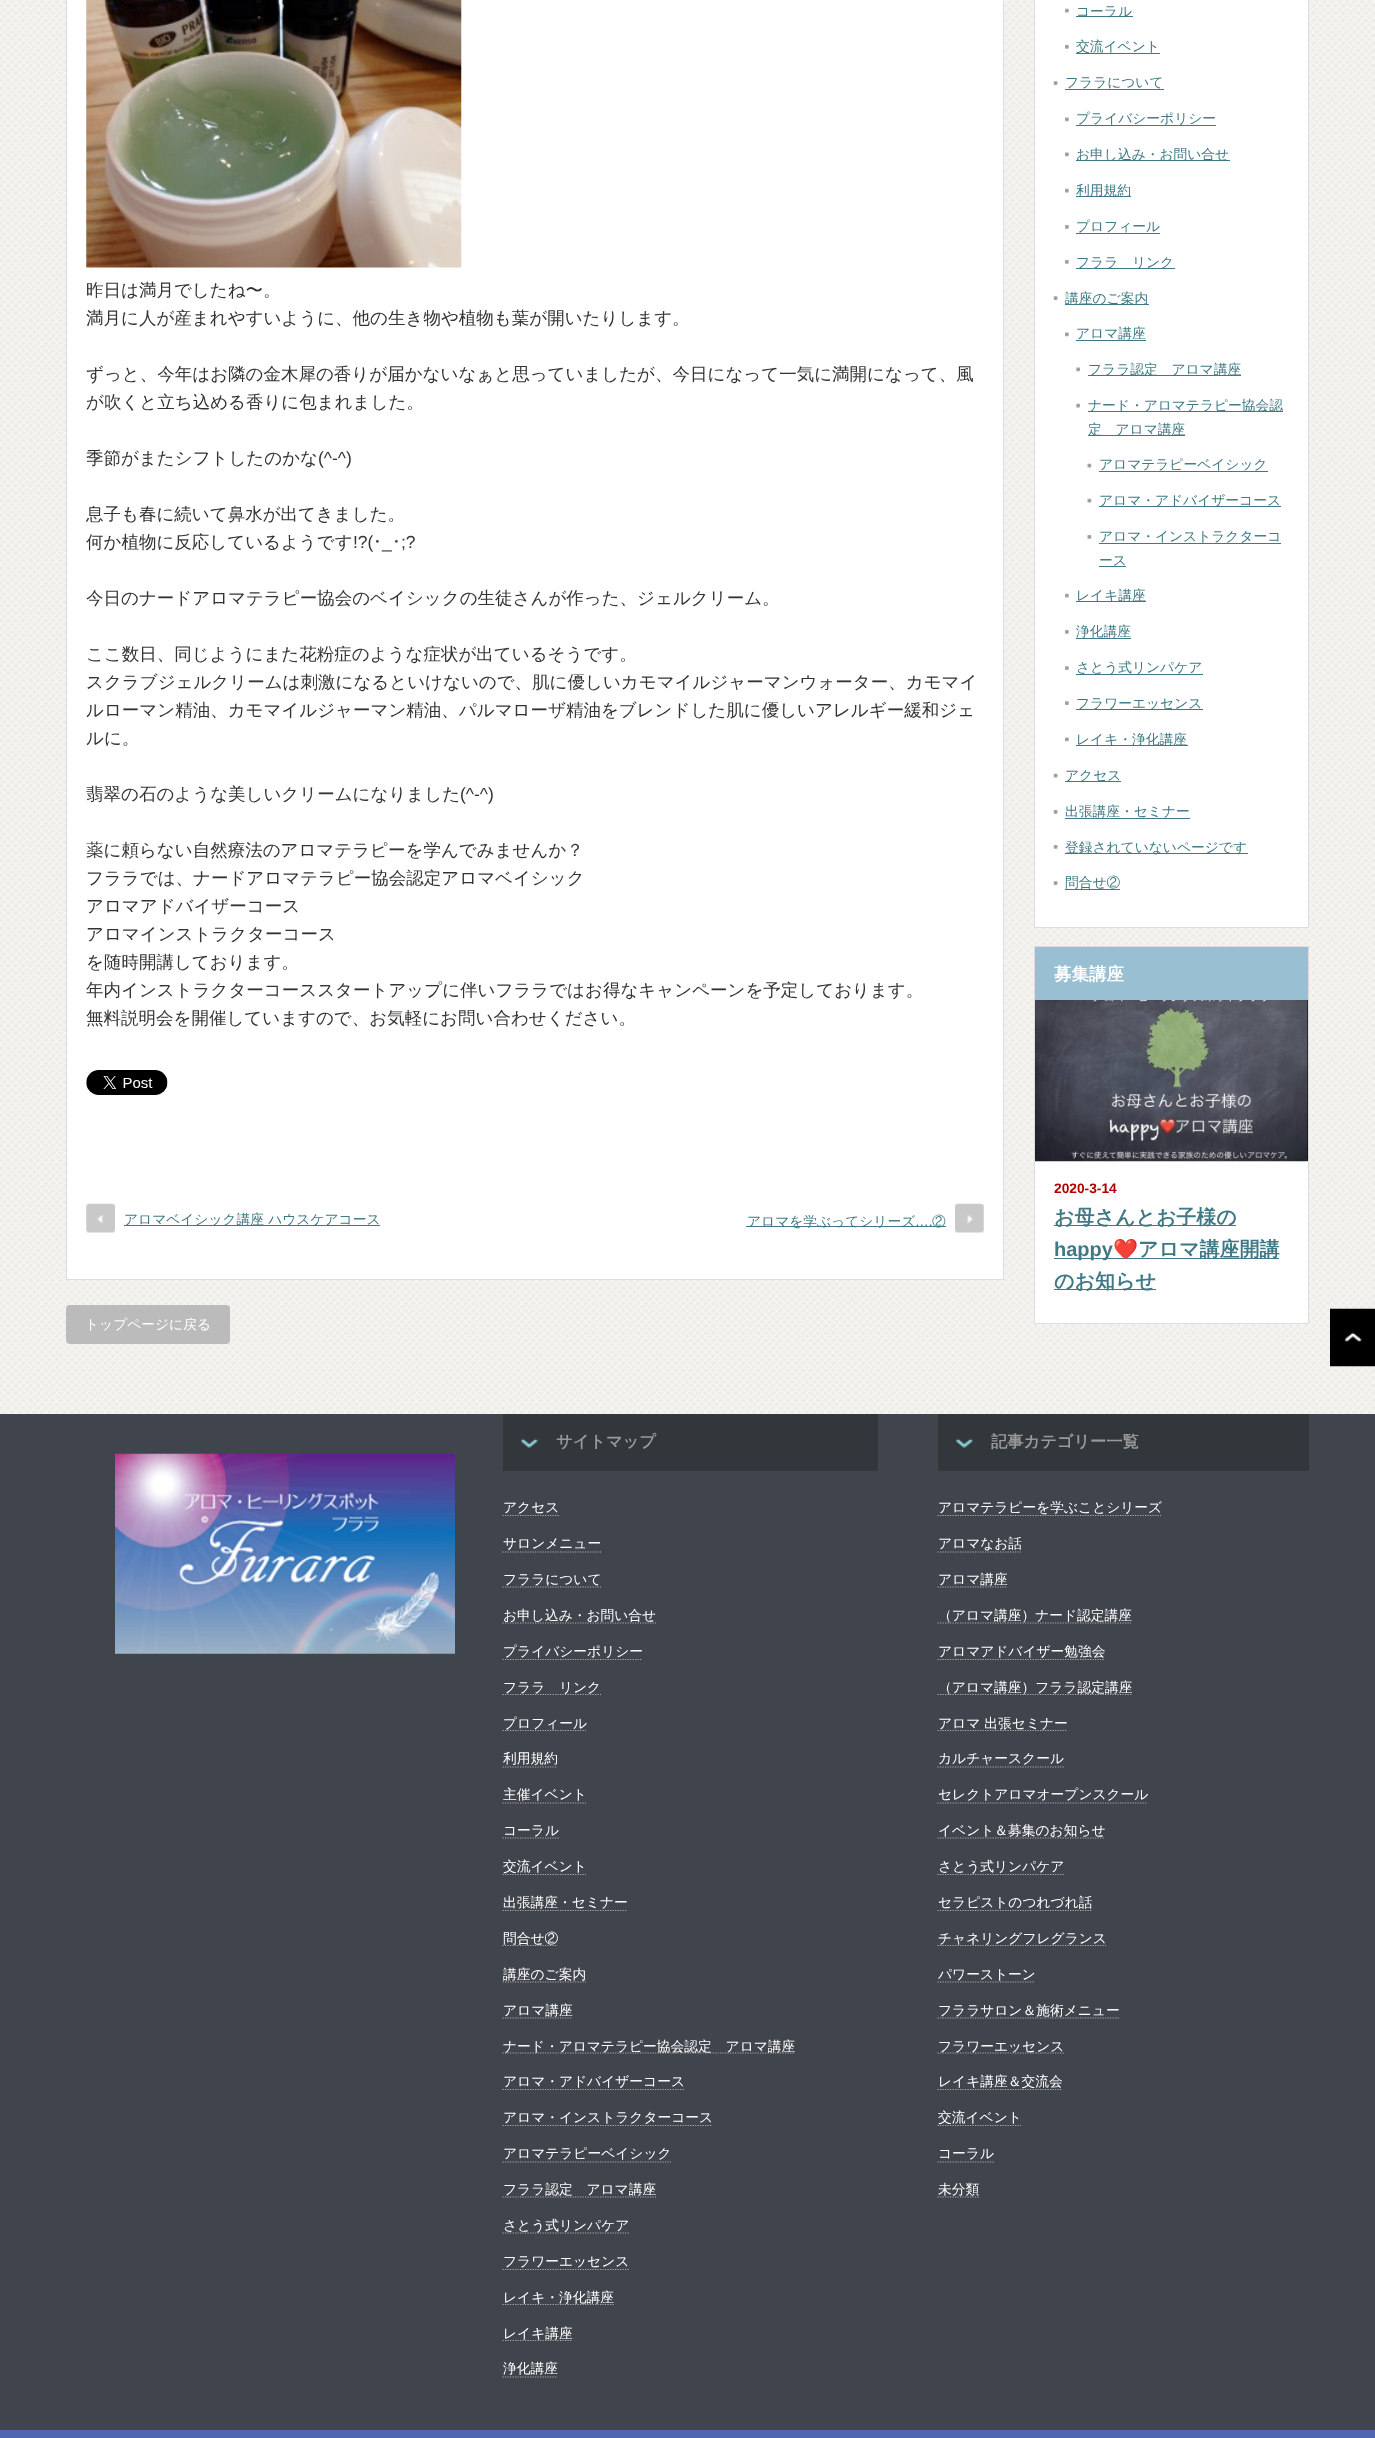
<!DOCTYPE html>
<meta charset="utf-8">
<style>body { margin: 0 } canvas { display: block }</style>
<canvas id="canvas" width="1375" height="2438"></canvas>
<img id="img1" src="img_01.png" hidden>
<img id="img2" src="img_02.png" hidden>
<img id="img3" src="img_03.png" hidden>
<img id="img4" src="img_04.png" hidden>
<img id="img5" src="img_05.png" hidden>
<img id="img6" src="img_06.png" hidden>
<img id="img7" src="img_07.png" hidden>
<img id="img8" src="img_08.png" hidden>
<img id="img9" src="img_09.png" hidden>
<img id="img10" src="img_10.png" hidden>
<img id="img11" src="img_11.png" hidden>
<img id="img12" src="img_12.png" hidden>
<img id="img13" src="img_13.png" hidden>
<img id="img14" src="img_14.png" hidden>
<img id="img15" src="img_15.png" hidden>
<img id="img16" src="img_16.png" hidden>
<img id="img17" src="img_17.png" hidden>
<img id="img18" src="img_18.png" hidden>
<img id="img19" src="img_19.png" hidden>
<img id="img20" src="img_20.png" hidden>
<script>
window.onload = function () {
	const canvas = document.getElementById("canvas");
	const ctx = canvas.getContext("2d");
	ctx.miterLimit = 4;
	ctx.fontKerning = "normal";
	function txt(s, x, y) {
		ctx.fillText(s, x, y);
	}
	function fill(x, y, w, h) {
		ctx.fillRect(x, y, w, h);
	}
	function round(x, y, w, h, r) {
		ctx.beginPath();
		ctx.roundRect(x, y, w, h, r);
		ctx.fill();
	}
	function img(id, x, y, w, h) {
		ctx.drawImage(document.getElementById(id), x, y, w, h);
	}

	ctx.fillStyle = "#FFFFFF";
	fill(0, 0, 1375, 2438);
	img("img1", 0, 0, 1375, 1414);
	ctx.beginPath();
	ctx.rect(66.5, -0.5, 937, 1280);
	ctx.fill();
	ctx.strokeStyle = "#DDDDDD";
	ctx.stroke();
	img("img2", 86, 0, 376, 268);
	img("img3", 86, 1070, 82, 25);
	img("img4", 86, 1203, 29, 30);
	ctx.fillStyle = "#3F7985";
	fill(124, 1225, 256, 1);
	img("img5", 955, 1203, 29, 30);
	fill(746, 1226, 200, 1);
	ctx.fillStyle = "#BBBBBB";
	round(66, 1305, 164, 39, 4);
	ctx.fillStyle = "#FFFFFF";
	ctx.beginPath();
	ctx.rect(1034.5, -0.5, 274, 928);
	ctx.fill();
	ctx.stroke();
	img("img6", 1065, 8, 4, 5);
	ctx.fillStyle = "#3F7985";
	fill(1076, 16, 57, 1);
	img("img7", 1065, 45, 4, 4);
	fill(1076, 53, 84, 1);
	img("img8", 1053, 81, 5, 4);
	fill(1065, 89, 99, 1);
	img("img9", 1065, 117, 4, 5);
	fill(1076, 125, 140, 1);
	img("img9", 1065, 152, 4, 5);
	fill(1076, 160, 154, 1);
	img("img6", 1065, 188, 4, 5);
	fill(1076, 196, 55, 1);
	img("img7", 1065, 225, 4, 4);
	fill(1076, 233, 84, 1);
	img("img7", 1065, 260, 4, 4);
	fill(1076, 268, 99, 1);
	img("img8", 1053, 296, 5, 4);
	fill(1065, 304, 84, 1);
	img("img9", 1065, 332, 4, 5);
	fill(1076, 340, 70, 1);
	img("img10", 1076, 367, 4, 5);
	fill(1088, 375, 153, 1);
	img("img11", 1076, 403, 4, 5);
	fill(1088, 411, 195, 1);
	fill(1088, 435, 97, 1);
	img("img12", 1087, 463, 5, 5);
	fill(1099, 471, 169, 1);
	img("img12", 1087, 498, 5, 5);
	fill(1099, 506, 182, 1);
	img("img13", 1087, 535, 5, 4);
	fill(1099, 543, 182, 1);
	fill(1099, 566, 27, 1);
	img("img6", 1065, 593, 4, 5);
	fill(1076, 601, 70, 1);
	img("img7", 1065, 630, 4, 4);
	fill(1076, 638, 55, 1);
	img("img14", 1065, 666, 4, 4);
	fill(1076, 674, 127, 1);
	img("img14", 1065, 701, 4, 4);
	fill(1076, 709, 127, 1);
	img("img9", 1065, 737, 4, 5);
	fill(1076, 745, 112, 1);
	img("img15", 1053, 773, 5, 5);
	fill(1065, 781, 56, 1);
	img("img16", 1053, 810, 5, 4);
	fill(1065, 818, 125, 1);
	img("img16", 1053, 845, 5, 4);
	fill(1065, 853, 183, 1);
	img("img8", 1053, 881, 5, 4);
	fill(1065, 889, 55, 1);
	ctx.fillStyle = "#FFFFFF";
	fill(1035, 1161, 273, 162);
	ctx.strokeRect(1034.5, 946.5, 274, 377);
	ctx.fillStyle = "#99BFD2";
	fill(1035, 947, 273, 53);
	ctx.fillStyle = "#000000";
	fill(1307, 1000, 1, 161);
	img("img17", 1035, 1000, 273, 162);
	ctx.fillStyle = "#3F7985";
	fill(1054, 1225, 182, 1);
	fill(1054, 1258, 225, 1);
	fill(1054, 1289, 102, 1);
	img("img18", 1330, 1308, 45, 59);
	ctx.fillStyle = "#40444D";
	fill(0, 1414, 1375, 1016);
	img("img19", 115, 1453, 340, 201);
	ctx.fillStyle = "#32373B";
	fill(503, 1414, 375, 57);
	img("img20", 521, 1438, 17, 10);
	ctx.beginPath();
	ctx.moveTo(502.5, 1515.5);
	ctx.lineTo(559, 1515.5);
	ctx.strokeStyle = "#AAAAAA";
	ctx.lineWidth = 1.2;
	ctx.setLineDash([1.25, 1.25]);
	ctx.stroke();
	ctx.beginPath();
	ctx.moveTo(502.5, 1552);
	ctx.lineTo(601, 1552);
	ctx.stroke();
	ctx.beginPath();
	ctx.moveTo(502.5, 1587);
	ctx.lineTo(601, 1587);
	ctx.stroke();
	ctx.beginPath();
	ctx.moveTo(502.5, 1623);
	ctx.lineTo(656, 1623);
	ctx.stroke();
	ctx.beginPath();
	ctx.moveTo(502.5, 1659.5);
	ctx.lineTo(642.5, 1659.5);
	ctx.stroke();
	ctx.beginPath();
	ctx.moveTo(502.5, 1694.5);
	ctx.lineTo(601, 1694.5);
	ctx.stroke();
	ctx.beginPath();
	ctx.moveTo(502.5, 1730.5);
	ctx.lineTo(586, 1730.5);
	ctx.stroke();
	ctx.beginPath();
	ctx.moveTo(502.5, 1767);
	ctx.lineTo(557.5, 1767);
	ctx.stroke();
	ctx.beginPath();
	ctx.moveTo(502.5, 1803);
	ctx.lineTo(586, 1803);
	ctx.stroke();
	ctx.beginPath();
	ctx.moveTo(502.5, 1838);
	ctx.lineTo(559, 1838);
	ctx.stroke();
	ctx.beginPath();
	ctx.moveTo(502.5, 1874.5);
	ctx.lineTo(586, 1874.5);
	ctx.stroke();
	ctx.beginPath();
	ctx.moveTo(502.5, 1910.5);
	ctx.lineTo(627.5, 1910.5);
	ctx.stroke();
	ctx.beginPath();
	ctx.moveTo(502.5, 1945.5);
	ctx.lineTo(557.5, 1945.5);
	ctx.stroke();
	ctx.beginPath();
	ctx.moveTo(502.5, 1982);
	ctx.lineTo(586, 1982);
	ctx.stroke();
	ctx.beginPath();
	ctx.moveTo(502.5, 2018);
	ctx.lineTo(572.5, 2018);
	ctx.stroke();
	ctx.beginPath();
	ctx.moveTo(502.5, 2053);
	ctx.lineTo(795, 2053);
	ctx.stroke();
	ctx.beginPath();
	ctx.moveTo(502.5, 2089.5);
	ctx.lineTo(685, 2089.5);
	ctx.stroke();
	ctx.beginPath();
	ctx.moveTo(502.5, 2125.5);
	ctx.lineTo(712.5, 2125.5);
	ctx.stroke();
	ctx.beginPath();
	ctx.moveTo(502.5, 2162);
	ctx.lineTo(671, 2162);
	ctx.stroke();
	ctx.beginPath();
	ctx.moveTo(502.5, 2197);
	ctx.lineTo(656, 2197);
	ctx.stroke();
	ctx.beginPath();
	ctx.moveTo(502.5, 2233);
	ctx.lineTo(629, 2233);
	ctx.stroke();
	ctx.beginPath();
	ctx.moveTo(502.5, 2269.5);
	ctx.lineTo(629, 2269.5);
	ctx.stroke();
	ctx.beginPath();
	ctx.moveTo(502.5, 2304.5);
	ctx.lineTo(614, 2304.5);
	ctx.stroke();
	ctx.beginPath();
	ctx.moveTo(502.5, 2340.5);
	ctx.lineTo(572.5, 2340.5);
	ctx.stroke();
	ctx.beginPath();
	ctx.moveTo(502.5, 2377);
	ctx.lineTo(557.5, 2377);
	ctx.stroke();
	fill(938, 1414, 371, 57);
	img("img20", 956, 1438, 17, 10);
	ctx.beginPath();
	ctx.moveTo(937.5, 1515.5);
	ctx.lineTo(1161, 1515.5);
	ctx.stroke();
	ctx.beginPath();
	ctx.moveTo(937.5, 1552);
	ctx.lineTo(1021, 1552);
	ctx.stroke();
	ctx.beginPath();
	ctx.moveTo(937.5, 1587);
	ctx.lineTo(1007.5, 1587);
	ctx.stroke();
	ctx.beginPath();
	ctx.moveTo(937.5, 1623);
	ctx.lineTo(1131, 1623);
	ctx.stroke();
	ctx.beginPath();
	ctx.moveTo(937.5, 1659.5);
	ctx.lineTo(1105, 1659.5);
	ctx.stroke();
	ctx.beginPath();
	ctx.moveTo(937.5, 1694.5);
	ctx.lineTo(1132.5, 1694.5);
	ctx.stroke();
	ctx.beginPath();
	ctx.moveTo(937.5, 1730.5);
	ctx.lineTo(1067.5, 1730.5);
	ctx.stroke();
	ctx.beginPath();
	ctx.moveTo(937.5, 1767);
	ctx.lineTo(1064, 1767);
	ctx.stroke();
	ctx.beginPath();
	ctx.moveTo(937.5, 1803);
	ctx.lineTo(1147.5, 1803);
	ctx.stroke();
	ctx.beginPath();
	ctx.moveTo(937.5, 1838);
	ctx.lineTo(1105, 1838);
	ctx.stroke();
	ctx.beginPath();
	ctx.moveTo(937.5, 1874.5);
	ctx.lineTo(1064, 1874.5);
	ctx.stroke();
	ctx.beginPath();
	ctx.moveTo(937.5, 1910.5);
	ctx.lineTo(1092.5, 1910.5);
	ctx.stroke();
	ctx.beginPath();
	ctx.moveTo(937.5, 1945.5);
	ctx.lineTo(1106, 1945.5);
	ctx.stroke();
	ctx.beginPath();
	ctx.moveTo(937.5, 1982);
	ctx.lineTo(1035, 1982);
	ctx.stroke();
	ctx.beginPath();
	ctx.moveTo(937.5, 2018);
	ctx.lineTo(1119, 2018);
	ctx.stroke();
	ctx.beginPath();
	ctx.moveTo(937.5, 2053);
	ctx.lineTo(1064, 2053);
	ctx.stroke();
	ctx.beginPath();
	ctx.moveTo(937.5, 2089.5);
	ctx.lineTo(1062.5, 2089.5);
	ctx.stroke();
	ctx.beginPath();
	ctx.moveTo(937.5, 2125.5);
	ctx.lineTo(1021, 2125.5);
	ctx.stroke();
	ctx.beginPath();
	ctx.moveTo(937.5, 2162);
	ctx.lineTo(994, 2162);
	ctx.stroke();
	ctx.beginPath();
	ctx.moveTo(937.5, 2197);
	ctx.lineTo(979, 2197);
	ctx.stroke();
	ctx.fillStyle = "#4F67B0";
	fill(0, 2430, 1375, 8);
	ctx.font = "500 17.5px WenQuanYi Zen Hei";
	ctx.fillStyle = "#333333";
	txt("昨日は満月でしたね〜。", 86, 296);
	txt("満月に人が産まれやすいように、他の生き物や植物も葉が開いたりします。", 86, 324);
	txt("ずっと、今年はお隣の金木犀の香りが届かないなぁと思っていましたが、今日になって一気に満開になって、風", 86, 380);
	txt("が吹くと立ち込める香りに包まれました。", 86, 408);
	txt("季節がまたシフトしたのかな", 86, 464);
	ctx.font = "17.5px Liberation Sans";
	txt("(^-^)", 318, 464);
	ctx.font = "500 17.5px WenQuanYi Zen Hei";
	txt("息子も春に続いて鼻水が出てきました。", 86, 520);
	txt("何か植物に反応しているようです", 86, 548);
	ctx.font = "17.5px Liberation Sans";
	txt("!?(", 353, 548);
	ctx.font = "17.5px IPAGothic";
	txt("･", 373, 548);
	txt("･", 392, 548);
	ctx.font = "17.5px Liberation Sans";
	txt(";?", 401, 548);
	txt("_", 382, 548);
	ctx.font = "500 17.5px WenQuanYi Zen Hei";
	txt("今日のナードアロマテラピー協会のベイシックの生徒さんが作った、ジェルクリーム。", 86, 604);
	txt("ここ数日、同じようにまた花粉症のような症状が出ているそうです。", 86, 660);
	txt("スクラブジェルクリームは刺激になるといけないので、肌に優しいカモマイルジャーマンウォーター、カモマイ", 86, 688);
	txt("ルローマン精油、カモマイルジャーマン精油、パルマローザ精油をブレンドした肌に優しいアレルギー緩和ジェ", 86, 716);
	txt("ルに。", 86, 744);
	txt("翡翠の石のような美しいクリームになりました", 86, 800);
	ctx.font = "17.5px Liberation Sans";
	txt("(^-^)", 460, 800);
	ctx.font = "500 17.5px WenQuanYi Zen Hei";
	txt("薬に頼らない自然療法のアロマテラピーを学んでみませんか？", 86, 856);
	txt("フララでは、ナードアロマテラピー協会認定アロマベイシック", 86, 884);
	txt("アロマアドバイザーコース", 86, 912);
	txt("アロマインストラクターコース", 86, 940);
	txt("を随時開講しております。", 86, 968);
	txt("年内インストラクターコーススタートアップに伴いフララではお得なキャンペーンを予定しております。", 86, 996);
	txt("無料説明会を開催していますので、お気軽にお問い合わせください。", 86, 1024);
	ctx.font = "500 13.75px WenQuanYi Zen Hei";
	ctx.fillStyle = "#3F7985";
	txt("アロマベイシック講座 ハウスケアコース", 124, 1224);
	txt("アロマを学ぶってシリーズ", 747, 1226);
	ctx.font = "13.75px Liberation Sans";
	txt("….", 915, 1226);
	ctx.font = "500 13.75px WenQuanYi Zen Hei";
	txt("②", 932, 1226);
	ctx.fillStyle = "#FFFFFF";
	txt("トップページに戻る", 85, 1329);
	ctx.fillStyle = "#3F7985";
	txt("コーラル", 1076, 16);
	txt("交流イベント", 1076, 51);
	txt("フララについて", 1065, 87);
	txt("プライバシーポリシー", 1076, 123);
	txt("お申し込み・お問い合せ", 1076, 159);
	txt("利用規約", 1076, 195);
	txt("プロフィール", 1076, 231);
	txt("フララ　リンク", 1076, 267);
	txt("講座のご案内", 1065, 303);
	txt("アロマ講座", 1076, 338);
	txt("フララ認定　アロマ講座", 1088, 374);
	txt("ナード・アロマテラピー協会認", 1088, 410);
	txt("定　アロマ講座", 1088, 434);
	txt("アロマテラピーベイシック", 1099, 469);
	txt("アロマ・アドバイザーコース", 1099, 505);
	txt("アロマ・インストラクターコ", 1099, 541);
	txt("ース", 1099, 565);
	txt("レイキ講座", 1076, 600);
	txt("浄化講座", 1076, 636);
	txt("さとう式リンパケア", 1076, 672);
	txt("フラワーエッセンス", 1076, 708);
	txt("レイキ・浄化講座", 1076, 744);
	txt("アクセス", 1065, 780);
	txt("出張講座・セミナー", 1065, 816);
	txt("登録されていないページです", 1065, 852);
	txt("問合せ②", 1065, 887);
	ctx.font = "bold 17.5px WenQuanYi Zen Hei";
	ctx.fillStyle = "#FFFFFF";
	txt("募集講座", 1054, 980);
	ctx.font = "bold 13.75px Liberation Sans";
	ctx.fillStyle = "#B20000";
	txt("2020-3-14", 1054, 1193);
	ctx.font = "bold 20px WenQuanYi Zen Hei";
	ctx.fillStyle = "#3F7985";
	txt("お母さんとお子様の", 1054, 1224);
	ctx.font = "bold 20px Liberation Sans";
	txt("happy", 1054, 1256);
	ctx.font = "bold 20px Noto Color Emoji";
	txt("❤️", 1113, 1256);
	ctx.font = "bold 20px WenQuanYi Zen Hei";
	txt("アロマ講座開講", 1138, 1256);
	txt("のお知らせ", 1054, 1288);
	ctx.font = "bold 16.25px WenQuanYi Zen Hei";
	ctx.fillStyle = "#999999";
	txt("サイトマップ", 556, 1447);
	ctx.font = "500 13.75px WenQuanYi Zen Hei";
	ctx.fillStyle = "#FFFFFF";
	txt("アクセス", 503, 1512);
	txt("サロンメニュー", 503, 1548);
	txt("フララについて", 503, 1584);
	txt("お申し込み・お問い合せ", 503, 1620);
	txt("プライバシーポリシー", 503, 1656);
	txt("フララ　リンク", 503, 1692);
	txt("プロフィール", 503, 1728);
	txt("利用規約", 503, 1763);
	txt("主催イベント", 503, 1799);
	txt("コーラル", 503, 1835);
	txt("交流イベント", 503, 1871);
	txt("出張講座・セミナー", 503, 1907);
	txt("問合せ②", 503, 1943);
	ctx.save();
	ctx.beginPath();
	ctx.rect(503, 1414, 806, 1016);
	ctx.clip();
	txt("講座のご案内", 503, 1979);
	ctx.restore();
	txt("アロマ講座", 503, 2015);
	txt("ナード・アロマテラピー協会認定　アロマ講座", 503, 2051);
	txt("アロマ・アドバイザーコース", 503, 2086);
	txt("アロマ・インストラクターコース", 503, 2122);
	txt("アロマテラピーベイシック", 503, 2158);
	txt("フララ認定　アロマ講座", 503, 2194);
	txt("さとう式リンパケア", 503, 2230);
	txt("フラワーエッセンス", 503, 2266);
	txt("レイキ・浄化講座", 503, 2302);
	txt("レイキ講座", 503, 2338);
	txt("浄化講座", 503, 2373);
	ctx.font = "bold 16.25px WenQuanYi Zen Hei";
	ctx.fillStyle = "#999999";
	txt("記事カテゴリー一覧", 991, 1447);
	ctx.font = "500 13.75px WenQuanYi Zen Hei";
	ctx.fillStyle = "#FFFFFF";
	txt("アロマテラピーを学ぶことシリーズ", 938, 1512);
	txt("アロマなお話", 938, 1548);
	txt("アロマ講座", 938, 1584);
	txt("（アロマ講座）ナード認定講座", 938, 1620);
	txt("アロマアドバイザー勉強会", 938, 1656);
	txt("（アロマ講座）フララ認定講座", 938, 1692);
	txt("アロマ 出張セミナー", 938, 1728);
	txt("カルチャースクール", 938, 1763);
	txt("セレクトアロマオープンスクール", 938, 1799);
	txt("イベント＆募集のお知らせ", 938, 1835);
	txt("さとう式リンパケア", 938, 1871);
	txt("セラピストのつれづれ話", 938, 1907);
	txt("チャネリングフレグランス", 938, 1943);
	txt("パワーストーン", 938, 1979);
	txt("フララサロン＆施術メニュー", 938, 2015);
	txt("フラワーエッセンス", 938, 2051);
	txt("レイキ講座＆交流会", 938, 2086);
	txt("交流イベント", 938, 2122);
	txt("コーラル", 938, 2158);
	txt("未分類", 938, 2194);
};
</script>
